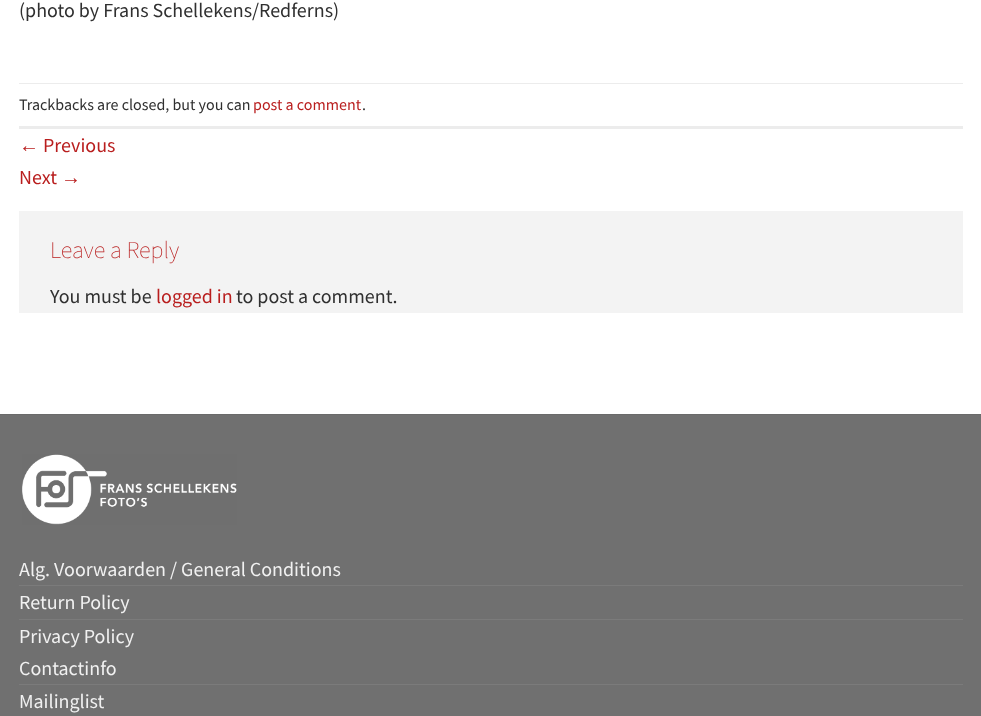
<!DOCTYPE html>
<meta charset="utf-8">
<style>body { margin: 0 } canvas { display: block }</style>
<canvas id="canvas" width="981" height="716"></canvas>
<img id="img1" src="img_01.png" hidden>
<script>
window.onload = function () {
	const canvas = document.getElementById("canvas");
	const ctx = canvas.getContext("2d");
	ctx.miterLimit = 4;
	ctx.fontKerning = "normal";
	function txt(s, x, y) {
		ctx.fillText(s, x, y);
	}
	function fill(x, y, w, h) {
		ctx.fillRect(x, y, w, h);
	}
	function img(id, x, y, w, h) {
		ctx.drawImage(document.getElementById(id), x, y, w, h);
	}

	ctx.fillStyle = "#FFFFFF";
	fill(0, 0, 981, 716);
	ctx.fillStyle = "#ECECEC";
	fill(19, 83, 944, 1);
	fill(19, 126, 944, 3);
	ctx.fillStyle = "#F3F3F3";
	fill(19, 211, 944, 102);
	ctx.fillStyle = "#707070";
	fill(0, 415, 981, 301);
	ctx.fillStyle = "#6A6A6A";
	fill(0, 414, 981, 1);
	img("img1", 22, 454, 215, 71);
	ctx.fillStyle = "#7B7B7B";
	fill(19, 585, 944, 1);
	fill(19, 619, 944, 1);
	fill(19, 684, 944, 1);
	ctx.font = "20px Source Sans Pro";
	ctx.fillStyle = "#303030";
	txt("(photo by Frans Schellekens/Redferns)", 19, 17);
	ctx.font = "16px Source Sans Pro";
	txt("Trackbacks are closed, but you can", 19, 110);
	ctx.fillStyle = "#B91E1E";
	txt("post a comment", 253, 110);
	ctx.fillStyle = "#303030";
	txt(".", 362, 110);
	ctx.font = "20px Liberation Sans";
	ctx.fillStyle = "#B91E1E";
	txt("←", 19, 152);
	ctx.font = "20px Source Sans Pro";
	txt("Previous", 43, 152);
	txt("Next", 19, 184);
	ctx.font = "20px Liberation Sans";
	txt("→", 61, 184);
	ctx.font = "200 24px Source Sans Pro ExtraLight";
	txt("Leave a Reply", 50, 258);
	ctx.font = "20px Source Sans Pro";
	ctx.fillStyle = "#303030";
	txt("You must be", 50, 303);
	ctx.fillStyle = "#B91E1E";
	txt("logged in", 156, 303);
	ctx.fillStyle = "#303030";
	txt("to post a comment.", 236, 303);
	ctx.fillStyle = "#F1F1F1";
	txt("Alg. Voorwaarden / General Conditions", 19, 576);
	txt("Return Policy", 19, 609);
	txt("Privacy Policy", 19, 643);
	txt("Contactinfo", 19, 675);
	txt("Mailinglist", 19, 708);
};
</script>
